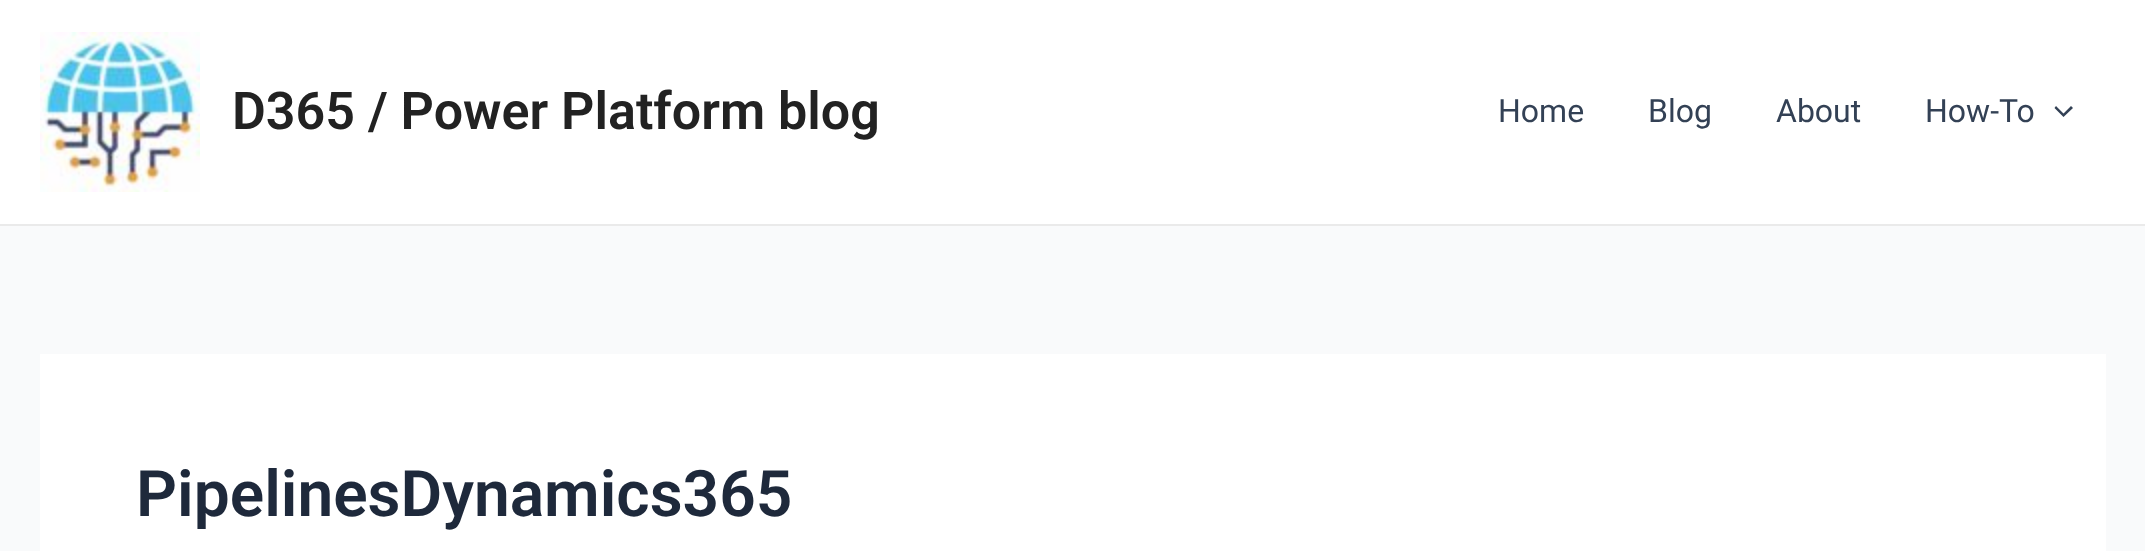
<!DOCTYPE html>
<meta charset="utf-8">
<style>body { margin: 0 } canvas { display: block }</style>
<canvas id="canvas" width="2145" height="551"></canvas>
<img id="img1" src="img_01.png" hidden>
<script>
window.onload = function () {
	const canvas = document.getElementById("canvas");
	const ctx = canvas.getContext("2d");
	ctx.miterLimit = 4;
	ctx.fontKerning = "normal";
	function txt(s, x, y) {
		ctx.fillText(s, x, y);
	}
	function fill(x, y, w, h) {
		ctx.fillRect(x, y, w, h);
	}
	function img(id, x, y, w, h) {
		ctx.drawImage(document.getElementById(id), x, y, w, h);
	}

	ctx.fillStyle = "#F9FAFB";
	fill(0, 0, 2145, 551);
	ctx.fillStyle = "#FFFFFF";
	fill(0, 0, 2145, 224);
	ctx.fillStyle = "#EAEAEA";
	fill(0, 224, 2145, 2);
	img("img1", 40, 32, 160, 160);
	ctx.fillStyle = "#334155";
	ctx.beginPath();
	ctx.moveTo(2054.5, 108);
	ctx.lineTo(2063.5, 117);
	ctx.lineTo(2073, 108);
	ctx.lineTo(2071, 106);
	ctx.lineTo(2063.5, 113.5);
	ctx.lineTo(2056, 106);
	ctx.closePath();
	ctx.fill();
	ctx.fillStyle = "#FFFFFF";
	fill(40, 354, 2066, 197);
	ctx.font = "600 52px Roboto";
	ctx.fillStyle = "#222222";
	txt("D365 / Power Platform blog", 232, 129);
	ctx.font = "32px Roboto";
	ctx.fillStyle = "#334155";
	txt("Home", 1498, 122);
	txt("Blog", 1648, 122);
	txt("About", 1776, 122);
	txt("How-To", 1925, 122);
	ctx.font = "600 64px Roboto";
	ctx.fillStyle = "#1E293B";
	txt("PipelinesDynamics365", 136, 516);
};
</script>
